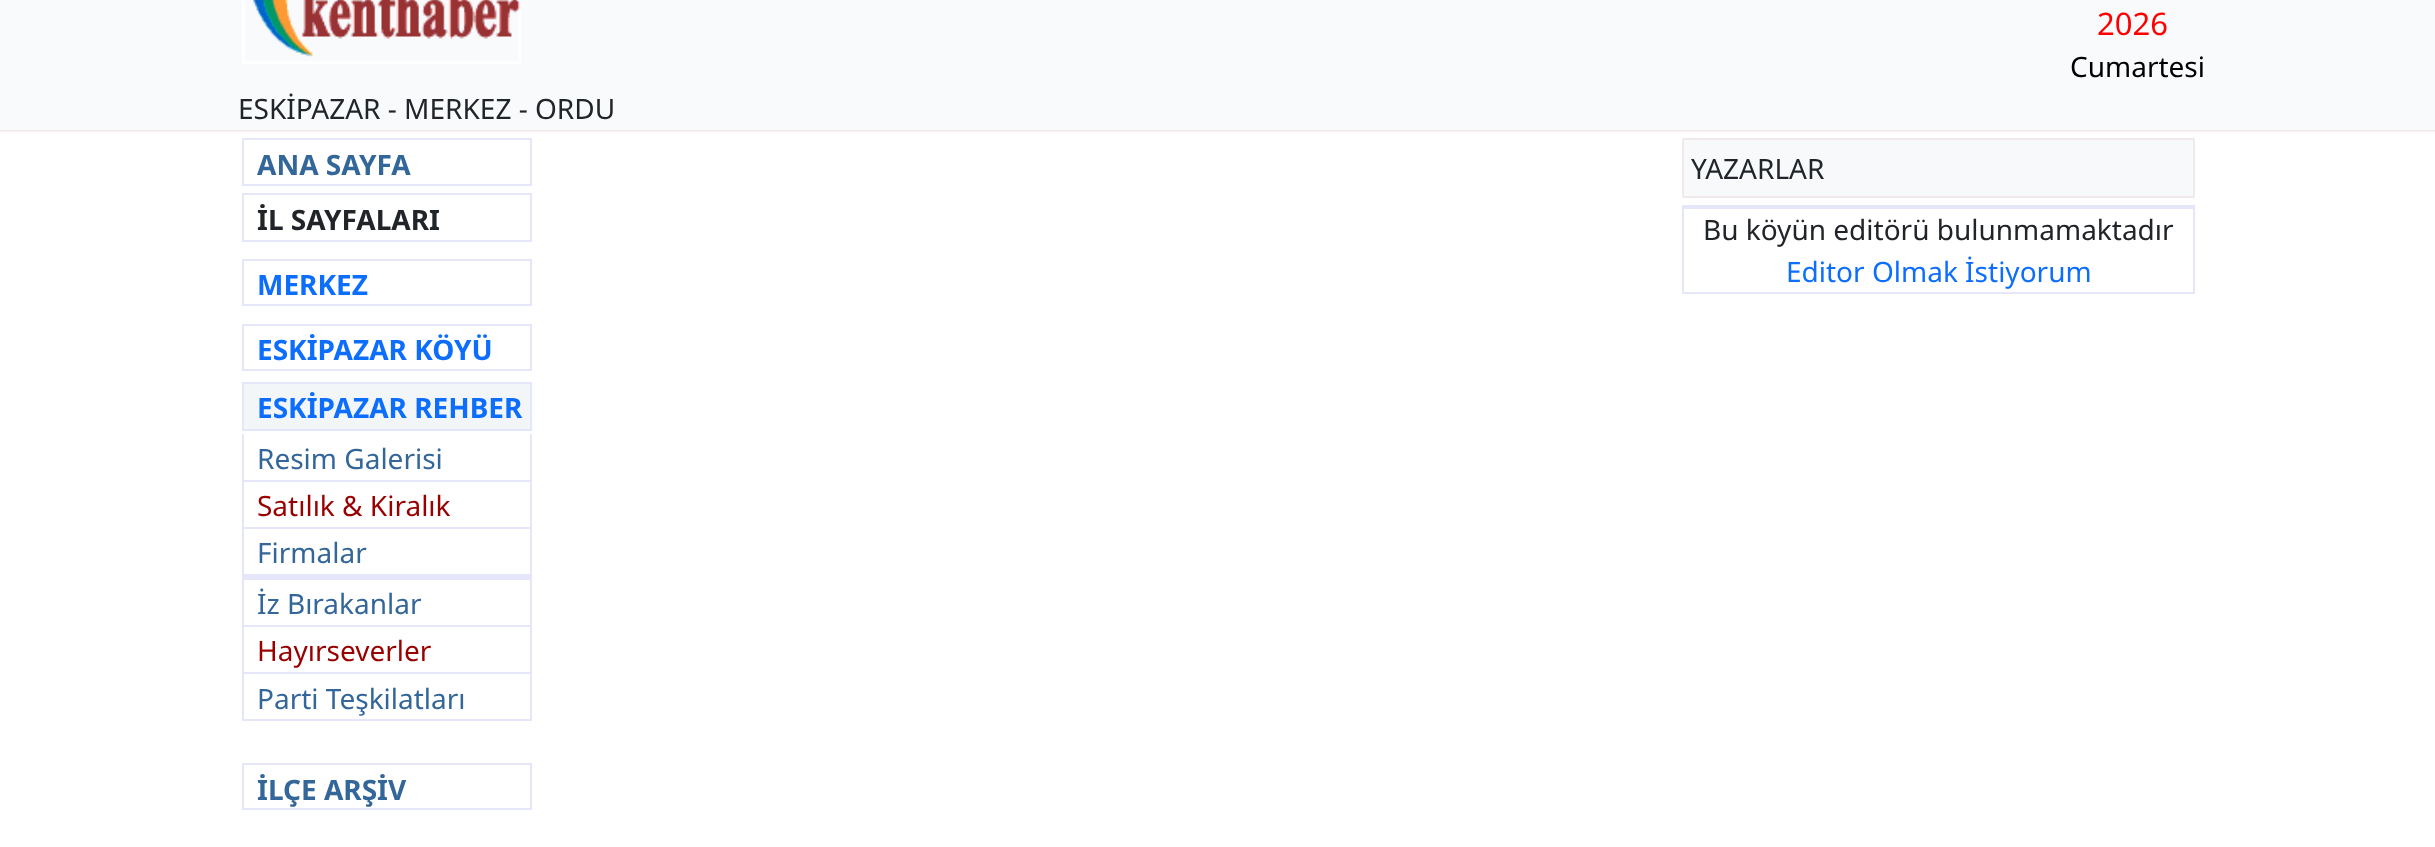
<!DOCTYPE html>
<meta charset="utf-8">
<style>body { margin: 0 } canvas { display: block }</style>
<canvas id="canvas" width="2435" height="847"></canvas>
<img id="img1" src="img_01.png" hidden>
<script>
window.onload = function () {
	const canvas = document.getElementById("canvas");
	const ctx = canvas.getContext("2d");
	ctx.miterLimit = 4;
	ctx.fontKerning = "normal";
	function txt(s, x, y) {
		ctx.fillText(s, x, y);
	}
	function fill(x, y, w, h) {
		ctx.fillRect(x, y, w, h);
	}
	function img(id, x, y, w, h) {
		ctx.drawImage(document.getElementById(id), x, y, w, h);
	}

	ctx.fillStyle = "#FFFFFF";
	fill(0, 0, 2435, 847);
	ctx.fillStyle = "#F9F0F0";
	fill(0, 131, 2435, 1);
	ctx.fillStyle = "#F8FAFC";
	fill(0, 0, 2435, 130);
	ctx.fillStyle = "#F2EBED";
	fill(0, 130, 2435, 1);
	img("img1", 242, 0, 279, 64);
	ctx.strokeStyle = "#E6E6FA";
	ctx.lineWidth = 2;
	ctx.strokeRect(243, 139, 288, 46);
	ctx.strokeRect(243, 194, 288, 47);
	ctx.strokeRect(243, 260, 288, 45);
	ctx.strokeRect(243, 325, 288, 45);
	ctx.fillStyle = "#F3F6F9";
	ctx.beginPath();
	ctx.rect(243, 383, 288, 47);
	ctx.fill();
	ctx.stroke();
	ctx.fillStyle = "#E6E6FA";
	fill(530, 434, 2, 47);
	fill(242, 480, 290, 2);
	fill(242, 434, 2, 47);
	fill(530, 481, 2, 95);
	fill(242, 527, 290, 2);
	fill(242, 481, 2, 48);
	fill(242, 574, 290, 6);
	fill(242, 529, 2, 47);
	fill(530, 579, 2, 142);
	fill(242, 625, 290, 2);
	fill(242, 579, 2, 48);
	fill(242, 672, 290, 2);
	fill(242, 627, 2, 47);
	fill(242, 719, 290, 2);
	fill(242, 674, 2, 47);
	ctx.strokeRect(243, 764, 288, 45);
	ctx.fillStyle = "#F7F9FB";
	ctx.beginPath();
	ctx.rect(1683, 139, 511, 58);
	ctx.fill();
	ctx.strokeStyle = "#F1EAEC";
	ctx.stroke();
	ctx.fillStyle = "#E6E6FA";
	fill(1682, 205, 513, 2);
	ctx.strokeStyle = "#E6E6FA";
	ctx.strokeRect(1683, 208, 511, 85);
	ctx.font = "31px Noto Sans";
	ctx.fillStyle = "#FF0000";
	txt("2026", 2097, 35);
	ctx.font = "28px Noto Sans";
	ctx.fillStyle = "#000000";
	txt("Cumartesi", 2070, 77);
	ctx.fillStyle = "#212529";
	txt("ESKİPAZAR - MERKEZ - ORDU", 238, 119);
	ctx.font = "bold 28px Noto Sans";
	ctx.fillStyle = "#336699";
	txt("ANA SAYFA", 257, 175);
	ctx.fillStyle = "#212529";
	txt("İL SAYFALARI", 257, 230);
	ctx.fillStyle = "#0D6EFD";
	txt("MERKEZ", 257, 295);
	txt("ESKİPAZAR KÖYÜ", 257, 360);
	txt("ESKİPAZAR REHBER", 257, 418);
	ctx.font = "28px Noto Sans";
	ctx.fillStyle = "#336699";
	txt("Resim Galerisi", 257, 469);
	ctx.fillStyle = "#990000";
	txt("Satılık & Kiralık", 257, 516);
	ctx.fillStyle = "#336699";
	txt("Firmalar", 257, 563);
	txt("İz Bırakanlar", 257, 614);
	ctx.fillStyle = "#990000";
	txt("Hayırseverler", 257, 661);
	ctx.fillStyle = "#336699";
	txt("Parti Teşkilatları", 257, 709);
	ctx.font = "bold 28px Noto Sans";
	txt("İLÇE ARŞİV", 257, 800);
	ctx.font = "28px Noto Sans";
	ctx.fillStyle = "#212529";
	txt("YAZARLAR", 1691, 179);
	txt("Bu köyün editörü bulunmamaktadır", 1703, 240);
	ctx.fillStyle = "#0D6EFD";
	txt("Editor Olmak İstiyorum", 1786, 282);
};
</script>
